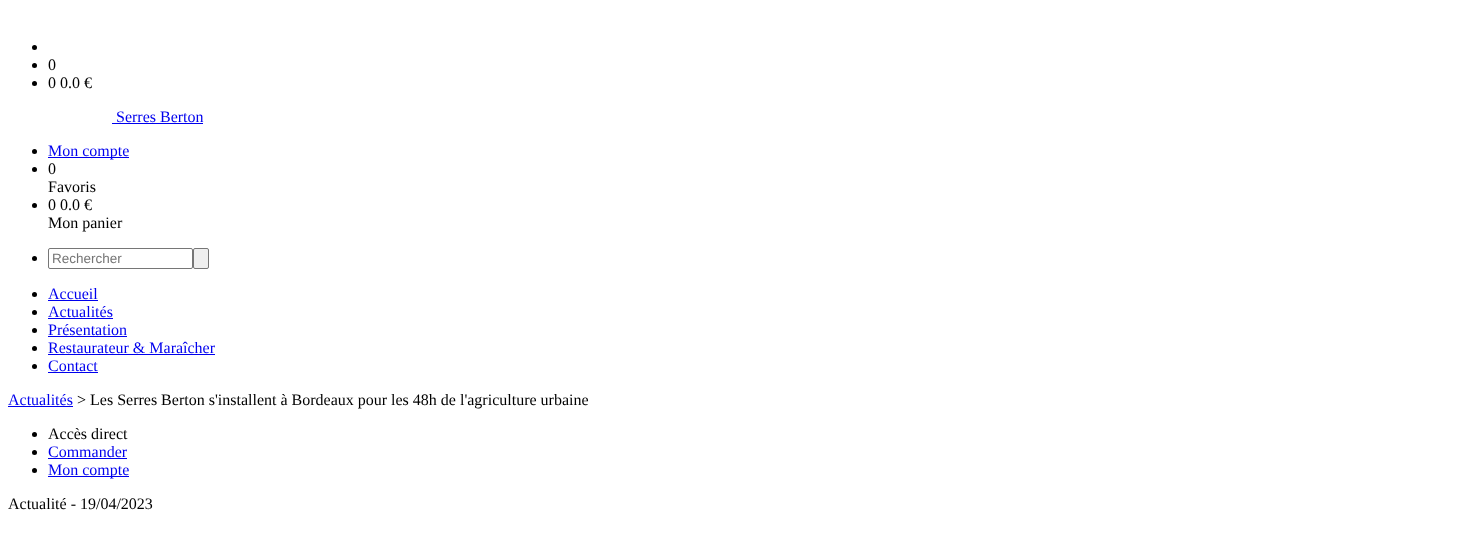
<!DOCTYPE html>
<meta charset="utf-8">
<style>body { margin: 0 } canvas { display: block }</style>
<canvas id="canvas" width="1468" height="534"></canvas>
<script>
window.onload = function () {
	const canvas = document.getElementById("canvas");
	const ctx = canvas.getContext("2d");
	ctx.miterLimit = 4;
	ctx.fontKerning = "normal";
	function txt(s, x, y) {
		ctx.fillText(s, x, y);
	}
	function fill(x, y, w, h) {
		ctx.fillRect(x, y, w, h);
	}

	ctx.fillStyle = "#FFFFFF";
	fill(0, 0, 1468, 534);
	ctx.fillStyle = "#000000";
	ctx.beginPath();
	ctx.arc(34.5, 47.5, 2.5, 0, Math.PI * 2);
	ctx.fill();
	ctx.beginPath();
	ctx.arc(34.5, 65.5, 2.5, 0, Math.PI * 2);
	ctx.fill();
	ctx.beginPath();
	ctx.arc(34.5, 83.5, 2.5, 0, Math.PI * 2);
	ctx.fill();
	ctx.fillStyle = "#0000EE";
	fill(112, 123, 91, 1);
	ctx.fillStyle = "#000000";
	ctx.beginPath();
	ctx.arc(34.5, 151.5, 2.5, 0, Math.PI * 2);
	ctx.fill();
	ctx.fillStyle = "#0000EE";
	fill(48, 157, 81, 1);
	ctx.fillStyle = "#000000";
	ctx.beginPath();
	ctx.arc(34.5, 169.5, 2.5, 0, Math.PI * 2);
	ctx.fill();
	ctx.beginPath();
	ctx.arc(34.5, 205.5, 2.5, 0, Math.PI * 2);
	ctx.fill();
	ctx.beginPath();
	ctx.arc(34.5, 258.5, 2.5, 0, Math.PI * 2);
	ctx.fill();
	ctx.beginPath();
	ctx.roundRect(48.5, 248.5, 144, 20, 1.5);
	ctx.strokeStyle = "#767676";
	ctx.stroke();
	ctx.fillStyle = "#EFEFEF";
	ctx.beginPath();
	ctx.roundRect(193.5, 248.5, 15, 20, 1.5);
	ctx.fill();
	ctx.stroke();
	ctx.fillStyle = "#000000";
	ctx.beginPath();
	ctx.arc(34.5, 294.5, 2.5, 0, Math.PI * 2);
	ctx.fill();
	ctx.fillStyle = "#0000EE";
	fill(48, 300, 50, 1);
	ctx.fillStyle = "#000000";
	ctx.beginPath();
	ctx.arc(34.5, 312.5, 2.5, 0, Math.PI * 2);
	ctx.fill();
	ctx.fillStyle = "#0000EE";
	fill(48, 318, 65, 1);
	ctx.fillStyle = "#000000";
	ctx.beginPath();
	ctx.arc(34.5, 330.5, 2.5, 0, Math.PI * 2);
	ctx.fill();
	ctx.fillStyle = "#0000EE";
	fill(48, 336, 79, 1);
	ctx.fillStyle = "#000000";
	ctx.beginPath();
	ctx.arc(34.5, 348.5, 2.5, 0, Math.PI * 2);
	ctx.fill();
	ctx.fillStyle = "#0000EE";
	fill(48, 354, 167, 1);
	ctx.fillStyle = "#000000";
	ctx.beginPath();
	ctx.arc(34.5, 366.5, 2.5, 0, Math.PI * 2);
	ctx.fill();
	ctx.fillStyle = "#0000EE";
	fill(48, 372, 50, 1);
	fill(8, 406, 65, 1);
	ctx.fillStyle = "#000000";
	ctx.beginPath();
	ctx.arc(34.5, 434.5, 2.5, 0, Math.PI * 2);
	ctx.fill();
	ctx.beginPath();
	ctx.arc(34.5, 452.5, 2.5, 0, Math.PI * 2);
	ctx.fill();
	ctx.fillStyle = "#0000EE";
	fill(48, 458, 79, 1);
	ctx.fillStyle = "#000000";
	ctx.beginPath();
	ctx.arc(34.5, 470.5, 2.5, 0, Math.PI * 2);
	ctx.fill();
	ctx.fillStyle = "#0000EE";
	fill(48, 476, 81, 1);
	ctx.font = "16px Liberation Serif";
	ctx.fillStyle = "#000000";
	txt("0", 48, 70);
	txt("0 0.0 €", 48, 88);
	ctx.fillStyle = "#0000EE";
	txt("Serres Berton", 116, 122);
	txt("Mon compte", 48, 156);
	ctx.fillStyle = "#000000";
	txt("0", 48, 174);
	txt("Favoris", 48, 192);
	txt("0 0.0 €", 48, 210);
	txt("Mon panier", 48, 228);
	ctx.font = "13.5px Liberation Sans";
	ctx.fillStyle = "#757575";
	txt("Rechercher", 52, 263);
	ctx.font = "16px Liberation Serif";
	ctx.fillStyle = "#0000EE";
	txt("Accueil", 48, 299);
	txt("Actualités", 48, 317);
	txt("Présentation", 48, 335);
	txt("Restaurateur & Maraîcher", 48, 353);
	txt("Contact", 48, 371);
	txt("Actualités", 8, 405);
	ctx.fillStyle = "#000000";
	txt("> Les Serres Berton s'installent à Bordeaux pour les 48h de l'agriculture urbaine", 77, 405);
	txt("Accès direct", 48, 439);
	ctx.fillStyle = "#0000EE";
	txt("Commander", 48, 457);
	txt("Mon compte", 48, 475);
	ctx.fillStyle = "#000000";
	txt("Actualité - 19/04/2023", 8, 509);
};
</script>
